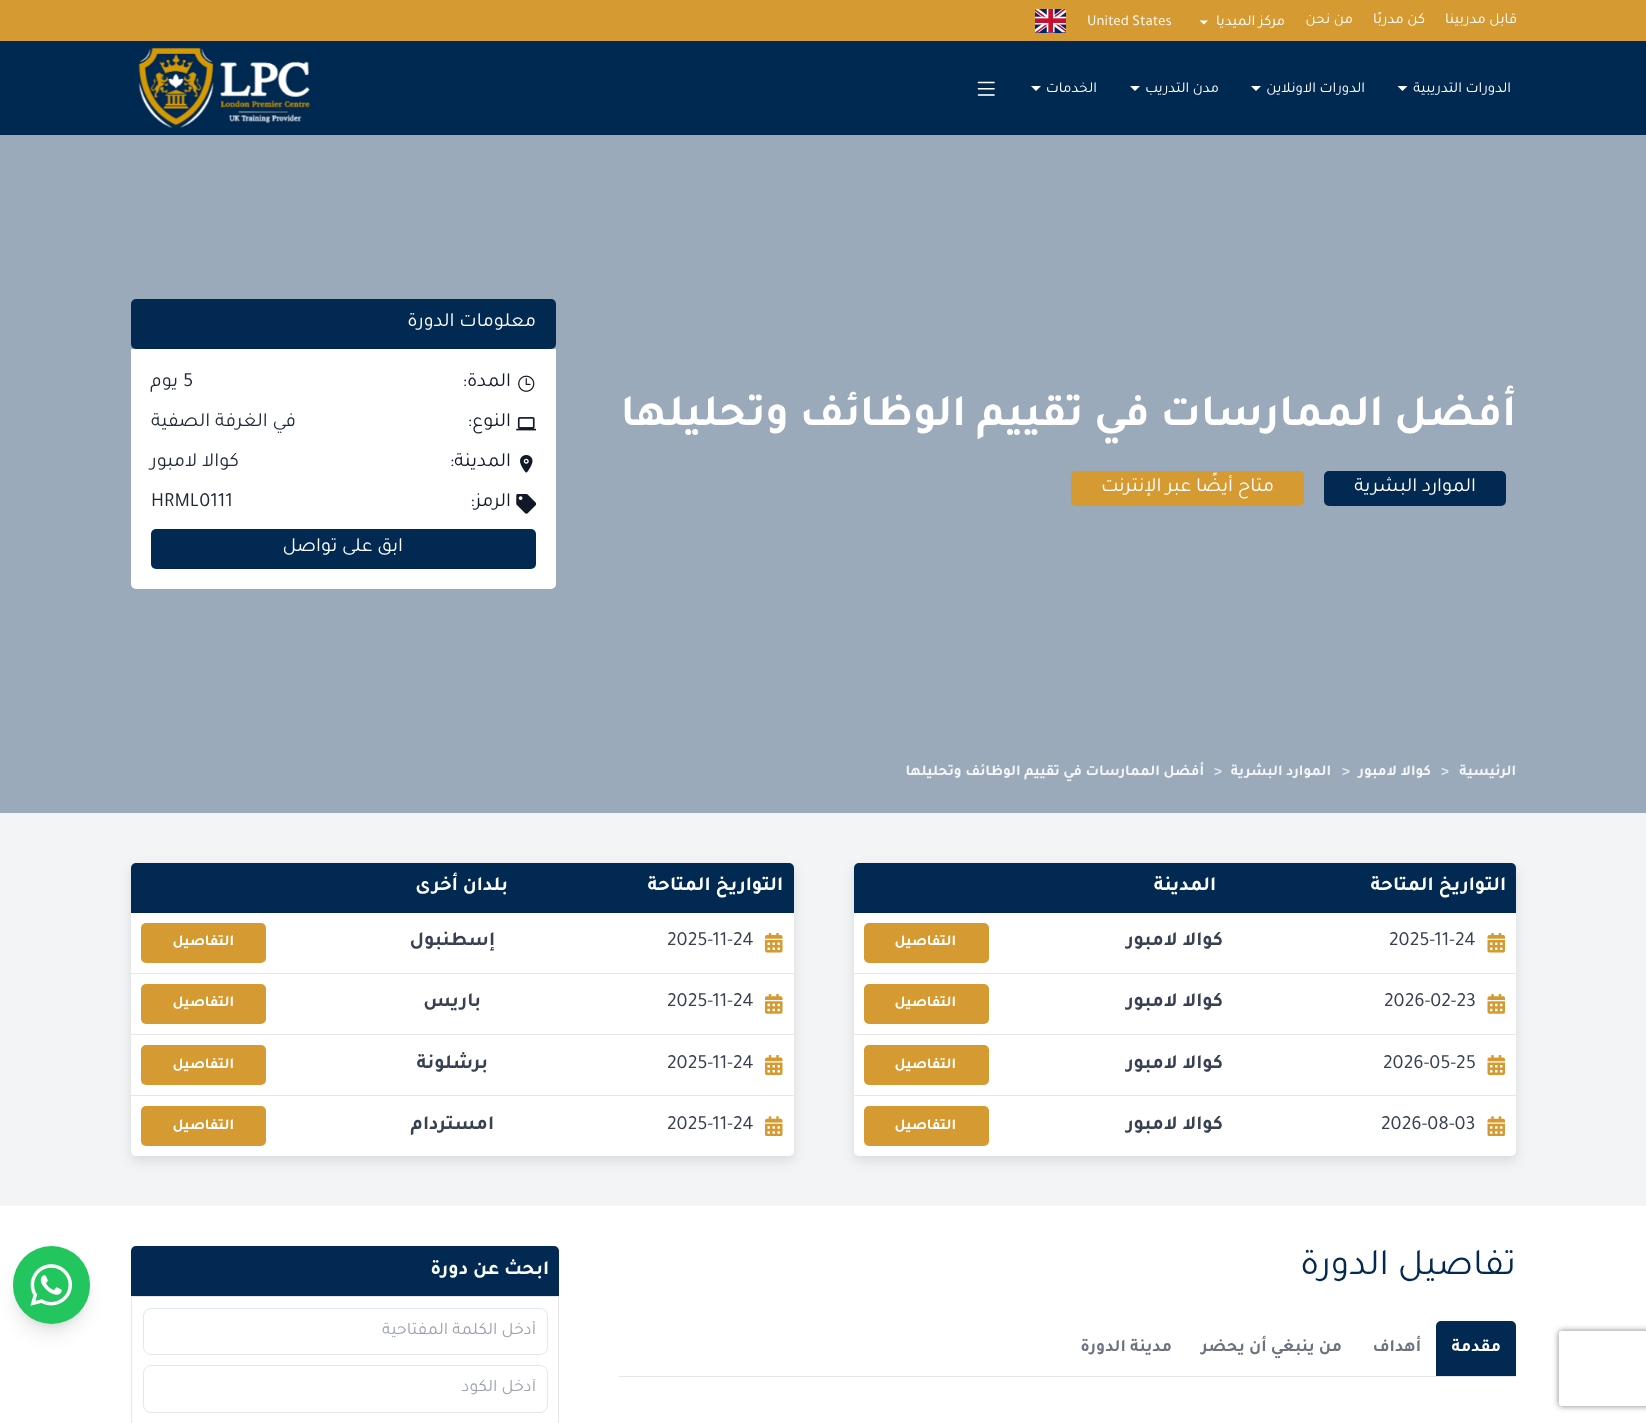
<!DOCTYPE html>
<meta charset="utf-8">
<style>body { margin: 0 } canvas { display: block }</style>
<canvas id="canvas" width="1646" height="1423"></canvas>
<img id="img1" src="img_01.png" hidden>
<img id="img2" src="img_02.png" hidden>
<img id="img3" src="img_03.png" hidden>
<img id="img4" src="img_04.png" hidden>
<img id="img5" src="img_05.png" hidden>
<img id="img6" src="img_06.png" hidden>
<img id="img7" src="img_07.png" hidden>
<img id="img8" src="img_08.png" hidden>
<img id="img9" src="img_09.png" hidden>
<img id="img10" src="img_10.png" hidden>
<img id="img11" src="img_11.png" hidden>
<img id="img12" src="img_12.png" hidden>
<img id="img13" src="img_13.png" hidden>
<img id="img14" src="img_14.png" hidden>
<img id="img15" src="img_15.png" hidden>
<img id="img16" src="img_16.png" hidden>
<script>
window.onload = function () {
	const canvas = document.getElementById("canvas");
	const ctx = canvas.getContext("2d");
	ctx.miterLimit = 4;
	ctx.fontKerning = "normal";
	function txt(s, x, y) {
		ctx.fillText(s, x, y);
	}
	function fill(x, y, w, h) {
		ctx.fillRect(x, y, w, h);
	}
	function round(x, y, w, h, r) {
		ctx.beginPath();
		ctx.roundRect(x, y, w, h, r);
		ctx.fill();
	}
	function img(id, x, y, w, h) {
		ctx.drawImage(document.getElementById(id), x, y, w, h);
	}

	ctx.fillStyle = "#FFFFFF";
	fill(0, 0, 1646, 1423);
	ctx.fillStyle = "#D59A32";
	fill(0, 0, 1646, 41);
	ctx.fillStyle = "#FFFFFF";
	ctx.beginPath();
	ctx.moveTo(1199.5, 20.5);
	ctx.lineTo(1204, 24.5);
	ctx.lineTo(1208, 20.5);
	ctx.closePath();
	ctx.fill();
	img("img1", 1035, 8, 31, 25);
	ctx.fillStyle = "#002951";
	fill(0, 41, 1646, 94);
	ctx.fillStyle = "#FFFFFF";
	ctx.beginPath();
	ctx.moveTo(1397.5, 86);
	ctx.lineTo(1402.5, 91);
	ctx.lineTo(1407.5, 86);
	ctx.closePath();
	ctx.fill();
	ctx.beginPath();
	ctx.moveTo(1251, 86);
	ctx.lineTo(1256, 91);
	ctx.lineTo(1261, 86);
	ctx.closePath();
	ctx.fill();
	ctx.beginPath();
	ctx.moveTo(1130, 86);
	ctx.lineTo(1135, 91);
	ctx.lineTo(1140, 86);
	ctx.closePath();
	ctx.fill();
	ctx.beginPath();
	ctx.moveTo(1031, 86);
	ctx.lineTo(1036, 91);
	ctx.lineTo(1041, 86);
	ctx.closePath();
	ctx.fill();
	img("img2", 977, 81, 18, 15);
	img("img3", 138, 47, 172, 81);
	ctx.save();
	ctx.beginPath();
	ctx.moveTo(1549, 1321);
	ctx.lineTo(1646, 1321);
	ctx.lineTo(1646, 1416);
	ctx.lineTo(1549, 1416);
	ctx.closePath();
	ctx.moveTo(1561.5, 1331);
	ctx.lineTo(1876.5, 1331);
	ctx.bezierCurveTo(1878, 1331, 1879, 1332, 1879, 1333.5);
	ctx.lineTo(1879, 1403.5);
	ctx.bezierCurveTo(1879, 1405, 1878, 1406, 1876.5, 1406);
	ctx.lineTo(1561.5, 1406);
	ctx.bezierCurveTo(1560, 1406, 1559, 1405, 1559, 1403.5);
	ctx.lineTo(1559, 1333.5);
	ctx.bezierCurveTo(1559, 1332, 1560, 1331, 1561.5, 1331);
	ctx.closePath();
	ctx.clip("evenodd");
	ctx.fillStyle = "#808080";
	ctx.filter = "blur(3px)";
	ctx.beginPath();
	ctx.roundRect(1559, 1331, 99, 75, 2.5);
	ctx.fill();
	ctx.filter = "none";
	ctx.restore();
	ctx.fillStyle = "#9AAABA";
	fill(0, 135, 1646, 678);
	ctx.fillStyle = "#012951";
	round(1324, 471, 182, 35, 5);
	ctx.fillStyle = "#D59A32";
	round(1071, 471, 233, 35, 5);
	ctx.fillStyle = "#012951";
	round(131, 299, 425, 50, 5);
	ctx.fillStyle = "#FFFFFF";
	ctx.beginPath();
	ctx.roundRect(131, 349, 425, 240, [0, 0, 5, 5]);
	ctx.fill();
	img("img4", 518, 375, 17, 17);
	img("img5", 516, 417, 20, 14);
	img("img6", 520, 455, 13, 18);
	img("img7", 516, 494, 20, 20);
	ctx.fillStyle = "#012951";
	round(151, 529, 385, 40, 5);
	ctx.fillStyle = "#F3F4F6";
	fill(0, 813, 1646, 393);
	ctx.fillStyle = "rgba(0, 0, 0, 0.1)";
	ctx.filter = "blur(6px)";
	ctx.beginPath();
	ctx.roundRect(854, 868, 662, 293, 5);
	ctx.fill();
	ctx.filter = "none";
	ctx.fillStyle = "#012951";
	ctx.beginPath();
	ctx.roundRect(854, 863, 662, 50, [5, 5, 0, 0]);
	ctx.fill();
	ctx.fillStyle = "#FFFFFF";
	ctx.beginPath();
	ctx.roundRect(854, 913, 662, 243, [0, 0, 5, 5]);
	ctx.fill();
	ctx.fillStyle = "#E5E7EB";
	fill(854, 973, 662, 1);
	img("img8", 1487, 933, 18, 20);
	ctx.fillStyle = "#D59A32";
	round(864, 923, 125, 40, 5);
	ctx.fillStyle = "#E5E7EB";
	fill(854, 1034, 662, 1);
	img("img9", 1487, 994, 18, 20);
	ctx.fillStyle = "#D59A32";
	round(864, 984, 125, 40, 5);
	ctx.fillStyle = "#E5E7EB";
	fill(854, 1095, 662, 1);
	img("img10", 1487, 1055, 18, 20);
	ctx.fillStyle = "#D59A32";
	round(864, 1045, 125, 40, 5);
	img("img11", 1487, 1116, 18, 20);
	round(864, 1106, 125, 40, 5);
	ctx.fillStyle = "rgba(0, 0, 0, 0.1)";
	ctx.filter = "blur(6px)";
	ctx.beginPath();
	ctx.roundRect(131, 868, 663, 293, 5);
	ctx.fill();
	ctx.filter = "none";
	ctx.fillStyle = "#012951";
	ctx.beginPath();
	ctx.roundRect(131, 863, 663, 50, [5, 5, 0, 0]);
	ctx.fill();
	ctx.fillStyle = "#FFFFFF";
	ctx.beginPath();
	ctx.roundRect(131, 913, 663, 243, [0, 0, 5, 5]);
	ctx.fill();
	ctx.fillStyle = "#E5E7EB";
	fill(131, 973, 663, 1);
	img("img12", 765, 933, 18, 20);
	ctx.fillStyle = "#D59A32";
	round(141, 923, 125, 40, 5);
	ctx.fillStyle = "#E5E7EB";
	fill(131, 1034, 663, 1);
	img("img13", 765, 994, 18, 20);
	ctx.fillStyle = "#D59A32";
	round(141, 984, 125, 40, 5);
	ctx.fillStyle = "#E5E7EB";
	fill(131, 1095, 663, 1);
	img("img14", 765, 1055, 18, 20);
	ctx.fillStyle = "#D59A32";
	round(141, 1045, 125, 40, 5);
	img("img15", 765, 1116, 18, 20);
	round(141, 1106, 125, 40, 5);
	ctx.fillStyle = "#E5E7EB";
	fill(619, 1376, 897, 1);
	ctx.fillStyle = "#012951";
	ctx.beginPath();
	ctx.roundRect(1436, 1321, 80, 55, [5, 5, 0, 0]);
	ctx.fill();
	ctx.beginPath();
	ctx.roundRect(131, 1246, 428, 50, [5, 5, 0, 0]);
	ctx.fill();
	ctx.strokeStyle = "#E5E7EB";
	ctx.strokeRect(131.5, 1296.5, 427, 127);
	ctx.beginPath();
	ctx.roundRect(143.5, 1308.5, 404, 46, 7.5);
	ctx.stroke();
	ctx.beginPath();
	ctx.roundRect(143.5, 1365.5, 404, 47, 7.5);
	ctx.stroke();
	ctx.fillStyle = "rgba(0, 0, 0, 0.1)";
	ctx.filter = "blur(4px)";
	ctx.beginPath();
	ctx.roundRect(18, 1256, 67, 68, 33.5);
	ctx.fill();
	ctx.filter = "none";
	ctx.filter = "blur(9.5px)";
	ctx.beginPath();
	ctx.roundRect(16, 1263, 70, 70, 35);
	ctx.fill();
	ctx.filter = "none";
	ctx.fillStyle = "#22C55E";
	round(13, 1246, 77, 78, 38.5);
	img("img16", 30, 1264, 42, 42);
	ctx.direction = "rtl";
	ctx.font = "15px Tajawal";
	ctx.fillStyle = "#FFFFFF";
	txt("قابل مدربينا", 1517, 23);
	txt("كن مدربًا", 1425, 23);
	txt("من نحن", 1353, 23);
	txt("مركز الميديا", 1285, 25);
	ctx.direction = "ltr";
	txt("United States", 1087, 25);
	ctx.direction = "rtl";
	txt("الدورات التدريبية", 1511, 92);
	txt("الدورات الاونلاين", 1365, 92);
	txt("مدن التدريب", 1219, 92);
	txt("الخدمات", 1097, 92);
	ctx.font = "bold 45px Tajawal";
	txt("أفضل الممارسات في تقييم الوظائف وتحليلها", 1516, 425);
	ctx.font = "20px Tajawal";
	txt("الموارد البشرية", 1476, 491);
	txt("متاح أيضًا عبر الإنترنت", 1274, 491);
	txt("معلومات الدورة", 536, 326);
	ctx.fillStyle = "#111827";
	txt("المدة:", 511, 386);
	ctx.direction = "ltr";
	ctx.fillStyle = "#1F2937";
	txt("5", 183, 386);
	ctx.direction = "rtl";
	txt("يوم", 178, 386);
	ctx.fillStyle = "#111827";
	txt("النوع:", 511, 426);
	ctx.fillStyle = "#1F2937";
	txt("في الغرفة الصفية", 296, 426);
	ctx.fillStyle = "#111827";
	txt("المدينة:", 511, 466);
	ctx.fillStyle = "#1F2937";
	txt("كوالا لامبور", 239, 466);
	ctx.fillStyle = "#111827";
	txt("الرمز:", 511, 506);
	ctx.direction = "ltr";
	ctx.fillStyle = "#1F2937";
	txt("HRML0111", 151, 506);
	ctx.direction = "rtl";
	ctx.fillStyle = "#FFFFFF";
	txt("ابق على تواصل", 403, 551);
	ctx.font = "bold 15px Tajawal";
	ctx.fillStyle = "#F5F7F8";
	txt("الرئيسية", 1516, 775);
	ctx.direction = "ltr";
	ctx.fillStyle = "#E1E6EA";
	txt(">", 1441, 775);
	ctx.direction = "rtl";
	ctx.fillStyle = "#F5F7F8";
	txt("كوالا لامبور", 1431, 775);
	ctx.direction = "ltr";
	ctx.fillStyle = "#E1E6EA";
	txt(">", 1342, 775);
	ctx.direction = "rtl";
	ctx.fillStyle = "#F5F7F8";
	txt("الموارد البشرية", 1331, 775);
	ctx.direction = "ltr";
	ctx.fillStyle = "#E1E6EA";
	txt(">", 1214, 775);
	ctx.direction = "rtl";
	ctx.fillStyle = "#F5F7F8";
	txt("أفضل الممارسات في تقييم الوظائف وتحليلها", 1204, 775);
	ctx.font = "bold 20px Tajawal";
	ctx.fillStyle = "#FFFFFF";
	txt("التواريخ المتاحة", 1506, 890);
	txt("المدينة", 1216, 890);
	ctx.direction = "ltr";
	ctx.font = "20px Tajawal";
	ctx.fillStyle = "#374151";
	txt("2025-11-24", 1389, 945);
	ctx.direction = "rtl";
	ctx.font = "bold 20px Tajawal";
	txt("كوالا لامبور", 1223, 945);
	ctx.font = "bold 15px Tajawal";
	ctx.fillStyle = "#FFFFFF";
	txt("التفاصيل", 956, 945);
	ctx.direction = "ltr";
	ctx.font = "20px Tajawal";
	ctx.fillStyle = "#374151";
	txt("2026-02-23", 1384, 1006);
	ctx.direction = "rtl";
	ctx.font = "bold 20px Tajawal";
	txt("كوالا لامبور", 1223, 1006);
	ctx.font = "bold 15px Tajawal";
	ctx.fillStyle = "#FFFFFF";
	txt("التفاصيل", 956, 1006);
	ctx.direction = "ltr";
	ctx.font = "20px Tajawal";
	ctx.fillStyle = "#374151";
	txt("2026-05-25", 1383, 1068);
	ctx.direction = "rtl";
	ctx.font = "bold 20px Tajawal";
	txt("كوالا لامبور", 1223, 1068);
	ctx.font = "bold 15px Tajawal";
	ctx.fillStyle = "#FFFFFF";
	txt("التفاصيل", 956, 1068);
	ctx.direction = "ltr";
	ctx.font = "20px Tajawal";
	ctx.fillStyle = "#374151";
	txt("2026-08-03", 1381, 1129);
	ctx.direction = "rtl";
	ctx.font = "bold 20px Tajawal";
	txt("كوالا لامبور", 1223, 1129);
	ctx.font = "bold 15px Tajawal";
	ctx.fillStyle = "#FFFFFF";
	txt("التفاصيل", 956, 1129);
	ctx.font = "bold 20px Tajawal";
	txt("التواريخ المتاحة", 783, 890);
	txt("بلدان أخرى", 508, 890);
	ctx.direction = "ltr";
	ctx.font = "20px Tajawal";
	ctx.fillStyle = "#374151";
	txt("2025-11-24", 667, 945);
	ctx.direction = "rtl";
	ctx.font = "bold 20px Tajawal";
	txt("إسطنبول", 495, 945);
	ctx.font = "bold 15px Tajawal";
	ctx.fillStyle = "#FFFFFF";
	txt("التفاصيل", 234, 945);
	ctx.direction = "ltr";
	ctx.font = "20px Tajawal";
	ctx.fillStyle = "#374151";
	txt("2025-11-24", 667, 1006);
	ctx.direction = "rtl";
	ctx.font = "bold 20px Tajawal";
	txt("باريس", 481, 1006);
	ctx.font = "bold 15px Tajawal";
	ctx.fillStyle = "#FFFFFF";
	txt("التفاصيل", 234, 1006);
	ctx.direction = "ltr";
	ctx.font = "20px Tajawal";
	ctx.fillStyle = "#374151";
	txt("2025-11-24", 667, 1068);
	ctx.direction = "rtl";
	ctx.font = "bold 20px Tajawal";
	txt("برشلونة", 488, 1068);
	ctx.font = "bold 15px Tajawal";
	ctx.fillStyle = "#FFFFFF";
	txt("التفاصيل", 234, 1068);
	ctx.direction = "ltr";
	ctx.font = "20px Tajawal";
	ctx.fillStyle = "#374151";
	txt("2025-11-24", 667, 1129);
	ctx.direction = "rtl";
	ctx.font = "bold 20px Tajawal";
	txt("امستردام", 494, 1129);
	ctx.font = "bold 15px Tajawal";
	ctx.fillStyle = "#FFFFFF";
	txt("التفاصيل", 234, 1129);
	ctx.font = "37.5px Tajawal";
	ctx.fillStyle = "#012951";
	txt("تفاصيل الدورة", 1516, 1274);
	ctx.font = "bold 17.5px Tajawal";
	ctx.fillStyle = "#FFFFFF";
	txt("مقدمة", 1501, 1351);
	ctx.fillStyle = "#6B7280";
	txt("أهداف", 1421, 1351);
	txt("من ينبغي أن يحضر", 1342, 1351);
	txt("مدينة الدورة", 1172, 1351);
	ctx.font = "bold 20px Tajawal";
	ctx.fillStyle = "#FFFFFF";
	txt("ابحث عن دورة", 549, 1274);
	ctx.save();
	ctx.beginPath();
	ctx.rect(154, 1321, 382, 22);
	ctx.clip();
	ctx.font = "17.5px Tajawal";
	ctx.fillStyle = "#9CA3AF";
	txt("أدخل الكلمة المفتاحية", 536, 1334);
	ctx.restore();
	ctx.save();
	ctx.beginPath();
	ctx.rect(154, 1379, 382, 21);
	ctx.clip();
	ctx.font = "17.5px Tajawal";
	ctx.fillStyle = "#9CA3AF";
	txt("أدخل الكود", 536, 1391);
	ctx.restore();
};
</script>
